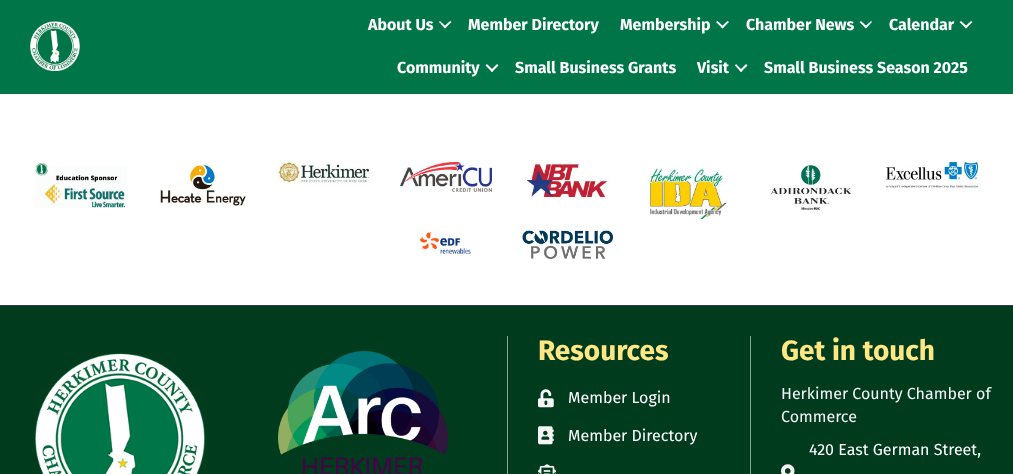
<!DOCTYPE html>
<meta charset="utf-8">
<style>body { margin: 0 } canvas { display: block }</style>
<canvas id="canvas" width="1013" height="474"></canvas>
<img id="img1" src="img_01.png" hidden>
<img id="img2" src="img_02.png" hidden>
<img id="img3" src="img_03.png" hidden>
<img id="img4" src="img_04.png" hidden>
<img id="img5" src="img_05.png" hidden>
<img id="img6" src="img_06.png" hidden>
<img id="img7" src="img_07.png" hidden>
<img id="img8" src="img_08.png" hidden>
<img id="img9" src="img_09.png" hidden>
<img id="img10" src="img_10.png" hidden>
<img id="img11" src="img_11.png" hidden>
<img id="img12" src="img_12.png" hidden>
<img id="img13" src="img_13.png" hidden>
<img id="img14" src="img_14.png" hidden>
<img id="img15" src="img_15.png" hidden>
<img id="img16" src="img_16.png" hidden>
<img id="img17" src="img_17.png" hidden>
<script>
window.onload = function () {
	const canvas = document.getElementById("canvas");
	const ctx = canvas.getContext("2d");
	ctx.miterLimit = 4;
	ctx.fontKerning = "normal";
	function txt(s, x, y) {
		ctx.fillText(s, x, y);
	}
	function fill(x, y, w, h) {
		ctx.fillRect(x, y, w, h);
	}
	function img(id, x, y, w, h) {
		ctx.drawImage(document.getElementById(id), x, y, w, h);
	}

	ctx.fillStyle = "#FFFFFF";
	fill(0, 0, 1013, 474);
	ctx.fillStyle = "#007548";
	fill(0, 0, 1013, 94);
	img("img1", 30, 21, 50, 50);
	ctx.fillStyle = "#FFFFFF";
	ctx.beginPath();
	ctx.moveTo(450, 21);
	ctx.lineTo(451.5, 22);
	ctx.lineTo(445, 28.5);
	ctx.lineTo(443.5, 27);
	ctx.closePath();
	ctx.fill();
	ctx.beginPath();
	ctx.moveTo(440, 21);
	ctx.lineTo(446.5, 27);
	ctx.lineTo(445, 28.5);
	ctx.lineTo(439, 22);
	ctx.closePath();
	ctx.fill();
	ctx.beginPath();
	ctx.moveTo(727.5, 21);
	ctx.lineTo(729, 22);
	ctx.lineTo(722.5, 28.5);
	ctx.lineTo(721, 27);
	ctx.closePath();
	ctx.fill();
	ctx.beginPath();
	ctx.moveTo(717.5, 21);
	ctx.lineTo(724, 27);
	ctx.lineTo(722.5, 28.5);
	ctx.lineTo(716, 22);
	ctx.closePath();
	ctx.fill();
	ctx.beginPath();
	ctx.moveTo(871, 21);
	ctx.lineTo(872, 22);
	ctx.lineTo(866, 28.5);
	ctx.lineTo(864.5, 27);
	ctx.closePath();
	ctx.fill();
	ctx.beginPath();
	ctx.moveTo(861, 21);
	ctx.lineTo(867.5, 27);
	ctx.lineTo(866, 28.5);
	ctx.lineTo(859.5, 22);
	ctx.closePath();
	ctx.fill();
	ctx.beginPath();
	ctx.moveTo(971, 21);
	ctx.lineTo(972.5, 22);
	ctx.lineTo(966, 28.5);
	ctx.lineTo(964.5, 27);
	ctx.closePath();
	ctx.fill();
	ctx.beginPath();
	ctx.moveTo(961, 21);
	ctx.lineTo(967.5, 27);
	ctx.lineTo(966, 28.5);
	ctx.lineTo(959.5, 22);
	ctx.closePath();
	ctx.fill();
	ctx.beginPath();
	ctx.moveTo(497, 64);
	ctx.lineTo(498.5, 65.5);
	ctx.lineTo(492, 72);
	ctx.lineTo(490.5, 70.5);
	ctx.closePath();
	ctx.fill();
	ctx.beginPath();
	ctx.moveTo(487, 64);
	ctx.lineTo(493.5, 70.5);
	ctx.lineTo(492, 72);
	ctx.lineTo(485.5, 65.5);
	ctx.closePath();
	ctx.fill();
	ctx.beginPath();
	ctx.moveTo(746, 64);
	ctx.lineTo(747.5, 65.5);
	ctx.lineTo(741, 72);
	ctx.lineTo(739.5, 70.5);
	ctx.closePath();
	ctx.fill();
	ctx.beginPath();
	ctx.moveTo(736, 64);
	ctx.lineTo(742.5, 70.5);
	ctx.lineTo(741, 72);
	ctx.lineTo(735, 65.5);
	ctx.closePath();
	ctx.fill();
	img("img2", 35, 162, 92, 46);
	img("img3", 159, 164, 88, 42);
	img("img4", 278, 162, 92, 21);
	img("img5", 400, 162, 92, 30);
	img("img6", 420, 232, 51, 22);
	img("img7", 527, 162, 83, 37);
	img("img8", 522, 230, 91, 29);
	img("img9", 648, 167, 79, 54);
	img("img10", 770, 164, 82, 47);
	img("img11", 886, 162, 92, 26);
	ctx.fillStyle = "#003B1E";
	fill(0, 306, 1013, 168);
	ctx.fillStyle = "#2C3A56";
	fill(0, 305, 1013, 1);
	img("img12", 35, 353, 170, 121);
	img("img13", 278, 351, 170, 123);
	ctx.fillStyle = "#8AA598";
	fill(507, 336, 1, 138);
	img("img14", 538, 389, 16, 19);
	img("img15", 538, 426, 16, 19);
	img("img16", 538, 464, 18, 10);
	fill(750, 336, 1, 138);
	img("img17", 781, 464, 14, 10);
	ctx.font = "bold 16px Fira Sans";
	ctx.fillStyle = "#FFFFFF";
	txt("About Us", 368, 30);
	txt("Member Directory", 468, 30);
	txt("Membership", 620, 30);
	txt("Chamber News", 746, 30);
	txt("Calendar", 889, 30);
	txt("Community", 397, 73);
	txt("Small Business Grants", 515, 73);
	txt("Visit", 697, 73);
	txt("Small Business Season 2025", 764, 73);
	ctx.font = "bold 28px Fira Sans";
	ctx.fillStyle = "#FFE884";
	txt("Resources", 538, 360);
	ctx.font = "16px Fira Sans";
	ctx.fillStyle = "#FFFFFF";
	txt("Member Login", 568, 403);
	txt("Member Directory", 568, 441);
	ctx.font = "bold 28px Fira Sans";
	ctx.fillStyle = "#FFE884";
	txt("Get in touch", 781, 360);
	ctx.font = "16px Fira Sans";
	ctx.fillStyle = "#F5F5F5";
	txt("Herkimer County Chamber of", 781, 399);
	txt("Commerce", 781, 422);
	ctx.fillStyle = "#FFFFFF";
	txt("420 East German Street,", 809, 455);
};
</script>
